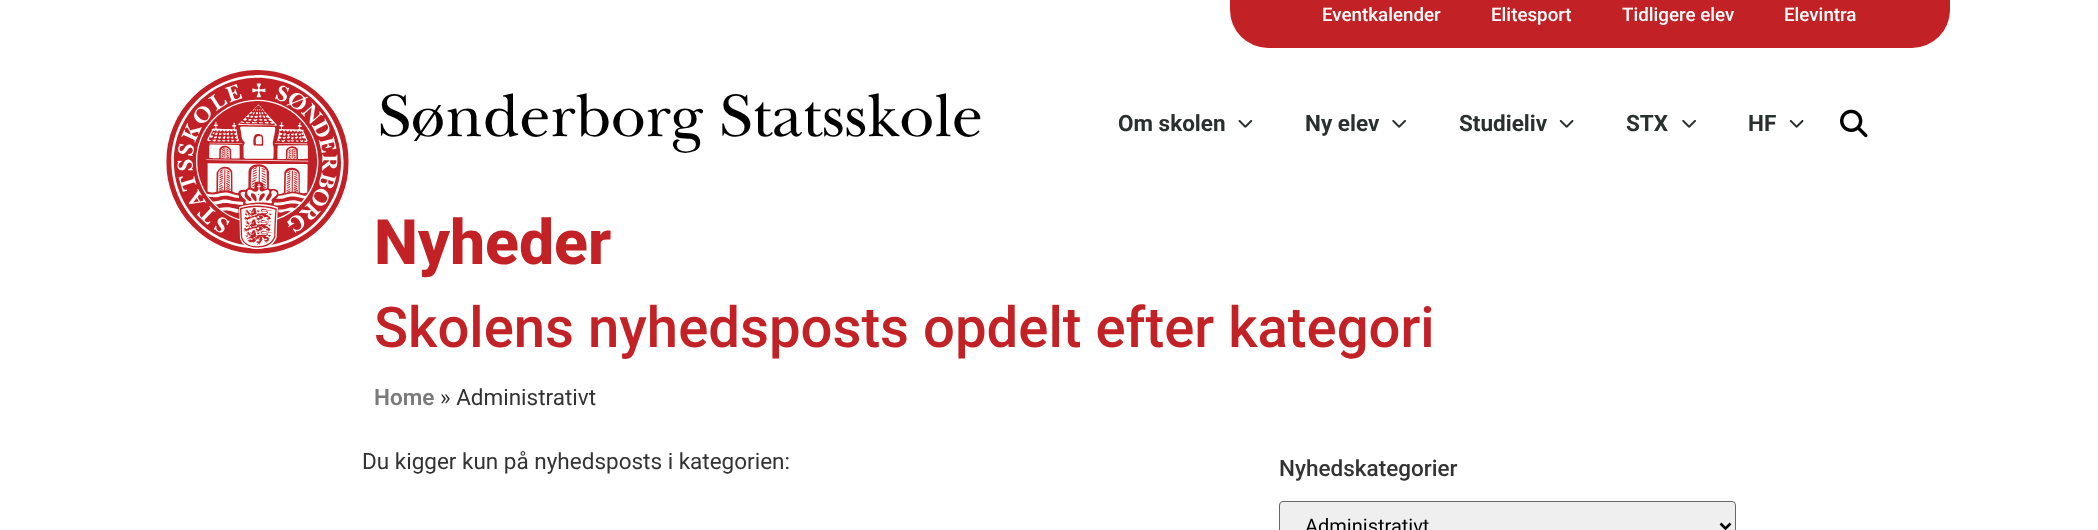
<!DOCTYPE html>
<meta charset="utf-8">
<style>body { margin: 0 } canvas { display: block }</style>
<canvas id="canvas" width="2098" height="530"></canvas>
<img id="img1" src="img_01.png" hidden>
<img id="img2" src="img_02.png" hidden>
<img id="img3" src="img_03.png" hidden>
<img id="img4" src="img_04.png" hidden>
<img id="img5" src="img_05.png" hidden>
<script>
window.onload = function () {
	const canvas = document.getElementById("canvas");
	const ctx = canvas.getContext("2d");
	ctx.miterLimit = 4;
	ctx.fontKerning = "normal";
	function txt(s, x, y) {
		ctx.fillText(s, x, y);
	}
	function fill(x, y, w, h) {
		ctx.fillRect(x, y, w, h);
	}
	function img(id, x, y, w, h) {
		ctx.drawImage(document.getElementById(id), x, y, w, h);
	}

	ctx.fillStyle = "#FFFFFF";
	fill(0, 0, 2098, 530);
	ctx.fillStyle = "#C22226";
	ctx.beginPath();
	ctx.roundRect(1230, 0, 720, 48, [0, 0, 38, 38]);
	ctx.fill();
	img("img1", 166, 70, 183, 184);
	img("img2", 1238, 119, 15, 9);
	img("img3", 1392, 119, 14, 9);
	img("img4", 1559, 119, 15, 9);
	img("img3", 1682, 119, 14, 9);
	img("img4", 1789, 119, 15, 9);
	img("img5", 1840, 109, 28, 29);
	ctx.fillStyle = "#EFEFEF";
	ctx.beginPath();
	ctx.roundRect(1279.5, 501.5, 456, 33, 3.5);
	ctx.fill();
	ctx.strokeStyle = "#666666";
	ctx.stroke();
	ctx.beginPath();
	ctx.moveTo(1720.5, 523.5);
	ctx.lineTo(1725.5, 528.5);
	ctx.lineTo(1730.5, 523.5);
	ctx.strokeStyle = "#000000";
	ctx.lineWidth = 2.5;
	ctx.stroke();
	ctx.font = "500 18.75px Roboto";
	ctx.fillStyle = "#FFFFFF";
	txt("Eventkalender", 1322, 21);
	txt("Elitesport", 1491, 21);
	txt("Tidligere elev", 1622, 21);
	txt("Elevintra", 1784, 21);
	ctx.font = "62.5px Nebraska";
	ctx.fillStyle = "#000000";
	txt("Sønderborg Statsskole", 378, 136);
	ctx.font = "bold 22.5px Roboto";
	ctx.fillStyle = "#2A302F";
	txt("Om skolen", 1118, 131);
	txt("Ny elev", 1305, 131);
	txt("Studieliv", 1459, 131);
	txt("STX", 1626, 131);
	txt("HF", 1748, 131);
	ctx.font = "800 62.5px Roboto";
	ctx.fillStyle = "#C22226";
	txt("Nyheder", 374, 264);
	ctx.font = "500 56.25px Roboto";
	txt("Skolens nyhedsposts opdelt efter kategori", 374, 347);
	ctx.font = "600 22.5px Roboto";
	ctx.fillStyle = "#7A7A7A";
	txt("Home", 374, 405);
	ctx.font = "22.5px Roboto";
	ctx.fillStyle = "#333333";
	txt("» Administrativt", 440, 405);
	txt("Du kigger kun på nyhedsposts i kategorien:", 362, 469);
	ctx.font = "500 22.5px Roboto";
	txt("Nyhedskategorier", 1279, 476);
	ctx.font = "20px Roboto";
	ctx.fillStyle = "#000000";
	txt("Administrativt", 1305, 533);
};
</script>
